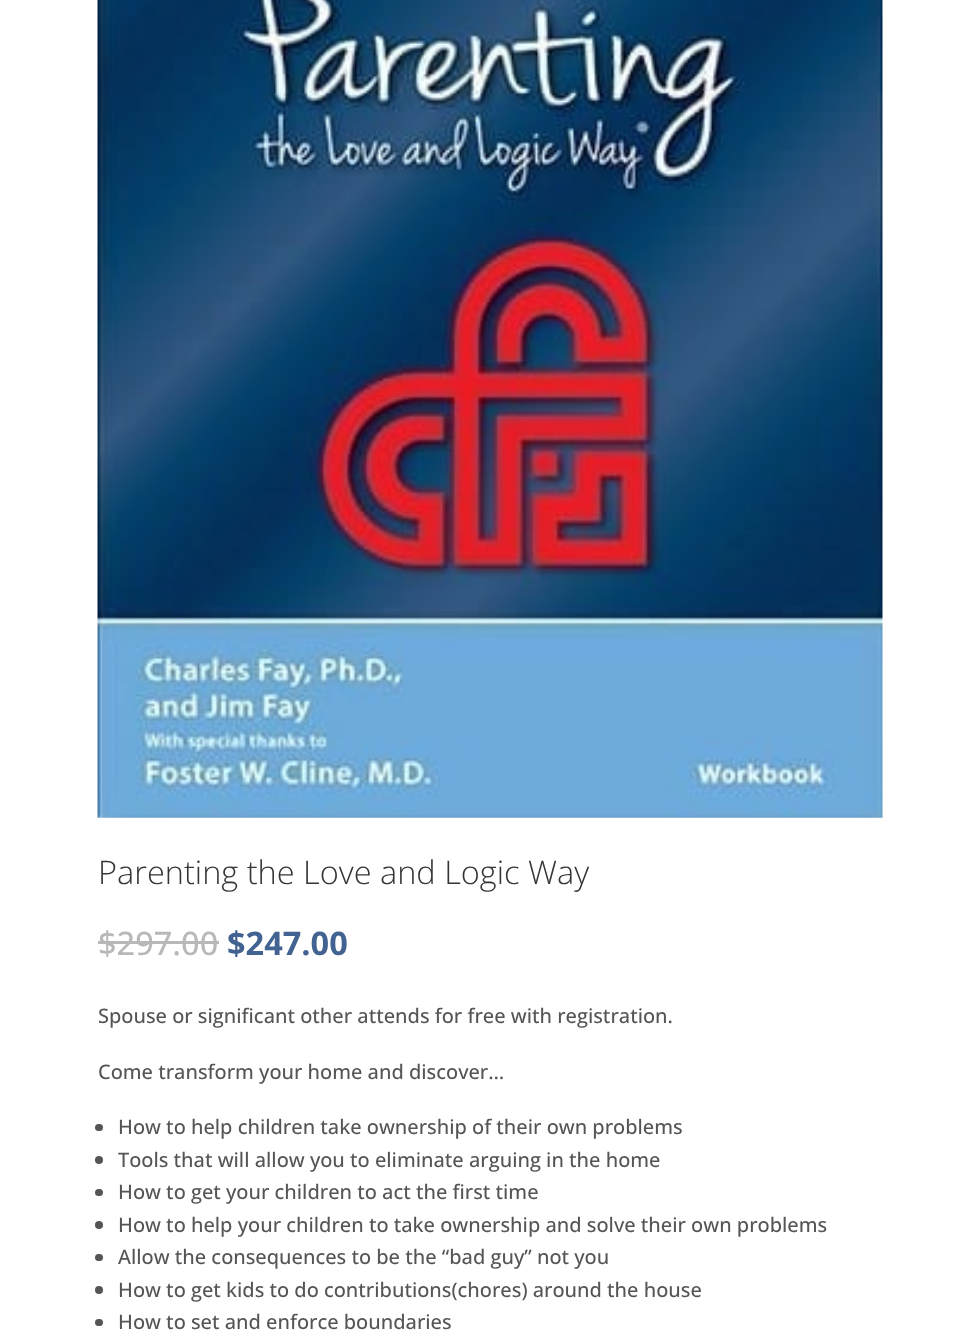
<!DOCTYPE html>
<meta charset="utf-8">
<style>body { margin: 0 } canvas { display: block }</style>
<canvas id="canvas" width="980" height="1331"></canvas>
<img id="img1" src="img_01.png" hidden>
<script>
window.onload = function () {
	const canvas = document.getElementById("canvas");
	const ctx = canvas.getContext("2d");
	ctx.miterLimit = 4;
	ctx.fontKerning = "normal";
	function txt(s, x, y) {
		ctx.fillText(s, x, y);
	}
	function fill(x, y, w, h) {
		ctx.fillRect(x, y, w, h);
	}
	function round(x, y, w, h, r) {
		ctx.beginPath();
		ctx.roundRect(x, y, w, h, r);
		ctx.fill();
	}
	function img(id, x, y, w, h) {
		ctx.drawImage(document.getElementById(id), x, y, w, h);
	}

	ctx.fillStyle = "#FFFFFF";
	fill(0, 0, 980, 1331);
	img("img1", 97, 0, 786, 818);
	ctx.fillStyle = "#B8B8B8";
	fill(98, 941, 121, 3);
	ctx.fillStyle = "#555555";
	round(95, 1124, 8, 7, 3.5);
	ctx.beginPath();
	ctx.arc(99, 1160, 4, 0, Math.PI * 2);
	ctx.fill();
	round(95, 1189, 8, 7, 3.5);
	ctx.beginPath();
	ctx.arc(99, 1225, 4, 0, Math.PI * 2);
	ctx.fill();
	round(95, 1254, 8, 7, 3.5);
	ctx.beginPath();
	ctx.arc(99, 1290, 4, 0, Math.PI * 2);
	ctx.fill();
	round(95, 1319, 8, 7, 3.5);
	ctx.font = "300 32.5px Open Sans";
	ctx.fillStyle = "#353535";
	txt("Parenting the Love and Logic Way", 98, 884);
	ctx.font = "500 32.5px Open Sans";
	ctx.fillStyle = "#B8B8B8";
	txt("$297.00", 98, 955);
	ctx.font = "bold 32.5px Open Sans";
	ctx.fillStyle = "#426391";
	txt("$247.00", 227, 955);
	ctx.font = "500 20px Open Sans";
	ctx.fillStyle = "#555555";
	txt("Spouse or significant other attends for free with registration.", 98, 1023);
	txt("Come transform your home and discover…", 98, 1079);
	txt("How to help children take ownership of their own problems", 118, 1134);
	txt("Tools that will allow you to eliminate arguing in the home", 118, 1167);
	txt("How to get your children to act the first time", 118, 1199);
	txt("How to help your children to take ownership and solve their own problems", 118, 1232);
	txt("Allow the consequences to be the “bad guy” not you", 118, 1264);
	txt("How to get kids to do contributions(chores) around the house", 118, 1297);
	txt("How to set and enforce boundaries", 118, 1329);
};
</script>
